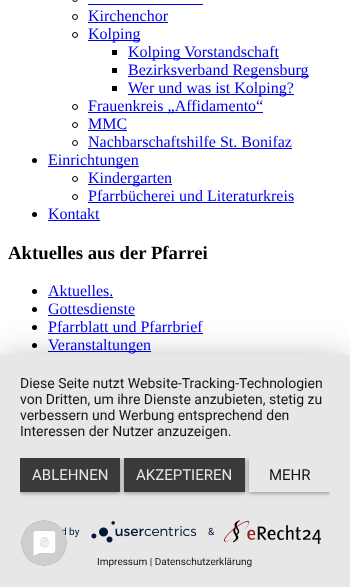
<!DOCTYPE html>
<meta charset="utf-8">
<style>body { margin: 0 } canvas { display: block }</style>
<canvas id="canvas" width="350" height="587"></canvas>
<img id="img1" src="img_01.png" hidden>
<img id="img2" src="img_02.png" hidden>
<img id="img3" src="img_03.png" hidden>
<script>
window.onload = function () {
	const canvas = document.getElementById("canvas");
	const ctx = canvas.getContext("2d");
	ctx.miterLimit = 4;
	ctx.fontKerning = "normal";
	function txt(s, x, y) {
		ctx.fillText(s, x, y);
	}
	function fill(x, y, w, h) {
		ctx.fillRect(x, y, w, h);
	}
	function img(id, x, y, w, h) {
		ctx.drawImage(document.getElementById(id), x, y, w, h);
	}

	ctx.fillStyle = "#FFFFFF";
	fill(0, 0, 350, 587);
	ctx.beginPath();
	ctx.arc(75, -1, 2.5, 0, Math.PI * 2);
	ctx.strokeStyle = "#000000";
	ctx.stroke();
	ctx.fillStyle = "#0000EE";
	fill(88, 4, 115, 1);
	ctx.beginPath();
	ctx.arc(75, 17, 2.5, 0, Math.PI * 2);
	ctx.stroke();
	fill(88, 22, 80, 1);
	ctx.beginPath();
	ctx.arc(75, 35, 2.5, 0, Math.PI * 2);
	ctx.stroke();
	fill(88, 40, 52, 1);
	ctx.fillStyle = "#000000";
	fill(112, 50, 5, 5);
	ctx.fillStyle = "#0000EE";
	fill(128, 58, 151, 1);
	ctx.fillStyle = "#000000";
	fill(112, 68, 5, 5);
	ctx.fillStyle = "#0000EE";
	fill(128, 76, 181, 1);
	ctx.fillStyle = "#000000";
	fill(112, 86, 5, 5);
	ctx.fillStyle = "#0000EE";
	fill(128, 94, 166, 1);
	ctx.beginPath();
	ctx.arc(75, 107, 2.5, 0, Math.PI * 2);
	ctx.stroke();
	fill(88, 112, 175, 1);
	ctx.beginPath();
	ctx.arc(75, 125, 2.5, 0, Math.PI * 2);
	ctx.stroke();
	fill(88, 130, 39, 1);
	ctx.beginPath();
	ctx.arc(75, 143, 2.5, 0, Math.PI * 2);
	ctx.stroke();
	fill(88, 148, 204, 1);
	ctx.fillStyle = "#000000";
	ctx.beginPath();
	ctx.arc(34.5, 160.5, 2.5, 0, Math.PI * 2);
	ctx.fill();
	ctx.fillStyle = "#0000EE";
	fill(48, 166, 91, 1);
	ctx.beginPath();
	ctx.arc(75, 179, 2.5, 0, Math.PI * 2);
	ctx.stroke();
	fill(88, 184, 84, 1);
	ctx.beginPath();
	ctx.arc(75, 197, 2.5, 0, Math.PI * 2);
	ctx.stroke();
	fill(88, 202, 206, 1);
	ctx.fillStyle = "#000000";
	ctx.beginPath();
	ctx.arc(34.5, 214.5, 2.5, 0, Math.PI * 2);
	ctx.fill();
	ctx.fillStyle = "#0000EE";
	fill(48, 220, 52, 1);
	ctx.fillStyle = "#000000";
	ctx.beginPath();
	ctx.arc(34.5, 291.5, 2.5, 0, Math.PI * 2);
	ctx.fill();
	ctx.fillStyle = "#0000EE";
	fill(48, 297, 65, 1);
	ctx.fillStyle = "#000000";
	ctx.beginPath();
	ctx.arc(34.5, 309.5, 2.5, 0, Math.PI * 2);
	ctx.fill();
	ctx.fillStyle = "#0000EE";
	fill(48, 315, 87, 1);
	ctx.fillStyle = "#000000";
	ctx.beginPath();
	ctx.arc(34.5, 327.5, 2.5, 0, Math.PI * 2);
	ctx.fill();
	ctx.fillStyle = "#0000EE";
	fill(48, 333, 155, 1);
	ctx.fillStyle = "#000000";
	ctx.beginPath();
	ctx.arc(34.5, 345.5, 2.5, 0, Math.PI * 2);
	ctx.fill();
	ctx.fillStyle = "#0000EE";
	fill(48, 351, 103, 1);
	ctx.fillStyle = "rgba(0, 0, 0, 0.3)";
	ctx.filter = "blur(18px)";
	ctx.beginPath();
	ctx.rect(0, 361, 350, 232);
	ctx.fill();
	ctx.filter = "none";
	ctx.fillStyle = "#E7E7E7";
	fill(0, 355, 350, 232);
	ctx.save();
	ctx.beginPath();
	ctx.rect(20, 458, 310, 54);
	ctx.clip();
	ctx.fillStyle = "rgba(0, 0, 0, 0.4)";
	ctx.filter = "blur(2px)";
	ctx.beginPath();
	ctx.rect(20, 459, 100, 34);
	ctx.fill();
	ctx.filter = "none";
	ctx.restore();
	ctx.fillStyle = "#3A3A3A";
	fill(20, 458, 100, 34);
	ctx.save();
	ctx.beginPath();
	ctx.rect(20, 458, 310, 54);
	ctx.clip();
	ctx.fillStyle = "rgba(0, 0, 0, 0.4)";
	ctx.filter = "blur(2px)";
	ctx.beginPath();
	ctx.rect(124, 459, 121, 34);
	ctx.fill();
	ctx.filter = "none";
	ctx.restore();
	fill(124, 458, 121, 34);
	ctx.save();
	ctx.beginPath();
	ctx.rect(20, 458, 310, 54);
	ctx.clip();
	ctx.beginPath();
	ctx.moveTo(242, 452);
	ctx.lineTo(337, 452);
	ctx.lineTo(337, 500);
	ctx.lineTo(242, 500);
	ctx.closePath();
	ctx.moveTo(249, 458);
	ctx.lineTo(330, 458);
	ctx.lineTo(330, 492);
	ctx.lineTo(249, 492);
	ctx.closePath();
	ctx.clip("evenodd");
	ctx.fillStyle = "rgba(0, 0, 0, 0.4)";
	ctx.filter = "blur(2px)";
	ctx.beginPath();
	ctx.rect(249, 459, 81, 34);
	ctx.fill();
	ctx.filter = "none";
	ctx.restore();
	img("img1", 91, 521, 106, 22);
	img("img2", 224, 520, 97, 24);
	ctx.font = "16px Liberation Serif";
	ctx.fillStyle = "#0000EE";
	txt("Kirchenchor", 88, 21);
	txt("Kolping", 88, 39);
	txt("Kolping Vorstandschaft", 128, 57);
	txt("Bezirksverband Regensburg", 128, 75);
	txt("Wer und was ist Kolping?", 128, 93);
	txt("Frauenkreis „Affidamento“", 88, 111);
	txt("MMC", 88, 129);
	txt("Nachbarschaftshilfe St. Bonifaz", 88, 147);
	txt("Einrichtungen", 48, 165);
	txt("Kindergarten", 88, 183);
	txt("Pfarrbücherei und Literaturkreis", 88, 201);
	txt("Kontakt", 48, 219);
	ctx.font = "bold 18.75px Liberation Serif";
	ctx.fillStyle = "#000000";
	txt("Aktuelles aus der Pfarrei", 8, 259);
	ctx.font = "16px Liberation Serif";
	ctx.fillStyle = "#0000EE";
	txt("Aktuelles.", 48, 296);
	txt("Gottesdienste", 48, 314);
	txt("Pfarrblatt und Pfarrbrief", 48, 332);
	txt("Veranstaltungen", 48, 350);
	ctx.font = "14px Roboto";
	ctx.fillStyle = "#161616";
	txt("Diese Seite nutzt Website-Tracking-Technologien", 20, 388);
	txt("von Dritten, um ihre Dienste anzubieten, stetig zu", 20, 404);
	txt("verbessern und Werbung entsprechend den", 20, 420);
	txt("Interessen der Nutzer anzuzeigen.", 20, 436);
	ctx.font = "15px Roboto";
	ctx.fillStyle = "#E7E7E7";
	txt("ABLEHNEN", 32, 480);
	txt("AKZEPTIEREN", 136, 480);
	ctx.fillStyle = "#161616";
	txt("MEHR", 269, 480);
	ctx.font = "10px Roboto";
	ctx.fillStyle = "#021836";
	txt("d by", 61, 535);
	txt("&", 208, 535);
	ctx.fillStyle = "#161616";
	txt("Impressum | Datenschutzerklärung", 97, 565);
	img("img3", 21, 520, 46, 46);
};
</script>
